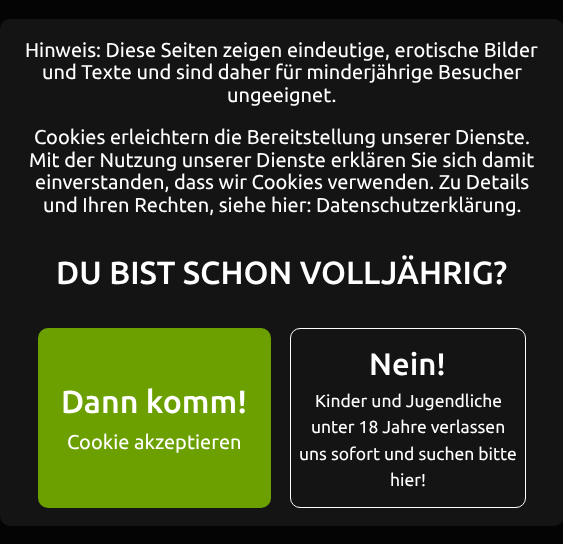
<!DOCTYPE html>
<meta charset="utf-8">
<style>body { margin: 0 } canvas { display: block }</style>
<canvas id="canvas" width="563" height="544"></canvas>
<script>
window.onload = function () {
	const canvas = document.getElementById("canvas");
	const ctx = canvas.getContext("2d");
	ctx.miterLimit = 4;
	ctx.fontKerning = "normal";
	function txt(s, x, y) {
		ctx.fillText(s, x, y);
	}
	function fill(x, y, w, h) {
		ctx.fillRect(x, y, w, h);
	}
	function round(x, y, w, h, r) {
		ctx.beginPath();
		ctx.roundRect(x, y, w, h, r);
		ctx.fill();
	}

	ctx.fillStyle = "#050405";
	fill(0, 0, 563, 544);
	ctx.fillStyle = "#141414";
	round(0, 19, 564, 507, 10);
	ctx.fillStyle = "#6BA000";
	round(38, 328, 233, 180, 10);
	ctx.beginPath();
	ctx.roundRect(290.5, 328.5, 235, 179, 9.5);
	ctx.strokeStyle = "#FFFFFF";
	ctx.stroke();
	ctx.font = "20px Ubuntu";
	ctx.fillStyle = "#FFFFFF";
	txt("Hinweis: Diese Seiten zeigen eindeutige, erotische Bilder", 25, 57);
	txt("und Texte und sind daher für minderjährige Besucher", 42, 79);
	txt("ungeeignet.", 227, 102);
	txt("Cookies erleichtern die Bereitstellung unserer Dienste.", 34, 144);
	txt("Mit der Nutzung unserer Dienste erklären Sie sich damit", 29, 167);
	txt("einverstanden, dass wir Cookies verwenden. Zu Details", 35, 189);
	txt("und Ihren Rechten, siehe hier: Datenschutzerklärung.", 43, 212);
	ctx.font = "500 32px Ubuntu";
	txt("DU BIST SCHON VOLLJÄHRIG?", 56, 284);
	txt("Dann komm!", 61, 413);
	ctx.font = "20px Ubuntu";
	txt("Cookie akzeptieren", 67, 449);
	ctx.font = "500 31px Ubuntu";
	txt("Nein!", 369, 375);
	ctx.font = "17.5px Ubuntu";
	txt("Kinder und Jugendliche", 315, 407);
	txt("unter 18 Jahre verlassen", 311, 433);
	txt("uns sofort und suchen bitte", 299, 460);
	txt("hier!", 390, 486);
};
</script>
